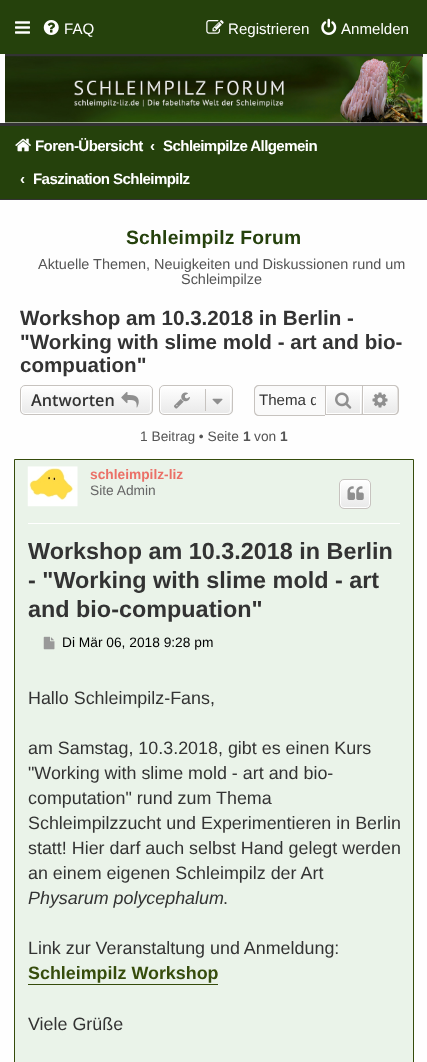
<!DOCTYPE html>
<meta charset="utf-8">
<style>body { margin: 0 } canvas { display: block }</style>
<canvas id="canvas" width="427" height="1062"></canvas>
<img id="img1" src="img_01.png" hidden>
<img id="img2" src="img_02.png" hidden>
<img id="img3" src="img_03.png" hidden>
<img id="img4" src="img_04.png" hidden>
<img id="img5" src="img_05.png" hidden>
<img id="img6" src="img_06.png" hidden>
<img id="img7" src="img_07.png" hidden>
<img id="img8" src="img_08.png" hidden>
<img id="img9" src="img_09.png" hidden>
<img id="img10" src="img_10.png" hidden>
<img id="img11" src="img_11.png" hidden>
<img id="img12" src="img_12.png" hidden>
<img id="img13" src="img_13.png" hidden>
<img id="img14" src="img_14.png" hidden>
<script>
window.onload = function () {
	const canvas = document.getElementById("canvas");
	const ctx = canvas.getContext("2d");
	ctx.miterLimit = 4;
	ctx.fontKerning = "normal";
	function txt(s, x, y) {
		ctx.fillText(s, x, y);
	}
	function fill(x, y, w, h) {
		ctx.fillRect(x, y, w, h);
	}
	function img(id, x, y, w, h) {
		ctx.drawImage(document.getElementById(id), x, y, w, h);
	}
	let gradient;

	ctx.fillStyle = "#FEFEFE";
	fill(0, 0, 427, 1062);
	ctx.fillStyle = "#25410C";
	fill(0, 0, 427, 54);
	img("img1", 15, 21, 15, 13);
	img("img2", 43, 20, 16, 15);
	img("img3", 206, 20, 18, 14);
	img("img4", 321, 18, 16, 17);
	ctx.fillStyle = "#333333";
	fill(5, 54, 418, 3);
	img("img5", 5, 56, 418, 67);
	ctx.fillStyle = "#25410C";
	fill(0, 126, 427, 73);
	ctx.fillStyle = "#333333";
	fill(0, 123, 427, 3);
	fill(0, 199, 427, 1);
	img("img6", 15, 138, 16, 14);
	ctx.save();
	ctx.beginPath();
	ctx.roundRect(20, 385, 133, 30, 5);
	ctx.clip();
	gradient = ctx.createLinearGradient(86, 386, 86, 414);
	gradient.addColorStop(0, "#FFFFFF");
	gradient.addColorStop(1, "#E9E9E9");
	ctx.fillStyle = gradient;
	fill(20, 386, 133, 28);
	ctx.restore();
	ctx.beginPath();
	ctx.roundRect(21.5, 386.5, 129, 27, 3.5);
	ctx.strokeStyle = "#FFFFFF";
	ctx.stroke();
	ctx.beginPath();
	ctx.roundRect(20.5, 385.5, 132, 29, 4.5);
	ctx.strokeStyle = "#C7C3BF";
	ctx.stroke();
	img("img7", 121, 392, 18, 16);
	ctx.save();
	ctx.beginPath();
	ctx.roundRect(159, 385, 74, 30, 5);
	ctx.clip();
	gradient = ctx.createLinearGradient(196, 386, 196, 414);
	gradient.addColorStop(0, "#FFFFFF");
	gradient.addColorStop(1, "#E9E9E9");
	ctx.fillStyle = gradient;
	fill(159, 386, 74, 28);
	ctx.restore();
	ctx.beginPath();
	ctx.roundRect(160.5, 386.5, 70, 27, 3.5);
	ctx.strokeStyle = "#FFFFFF";
	ctx.stroke();
	ctx.beginPath();
	ctx.roundRect(159.5, 385.5, 73, 29, 4.5);
	ctx.strokeStyle = "#C7C3BF";
	ctx.stroke();
	img("img8", 174, 392, 16, 17);
	ctx.fillStyle = "#C7C3BF";
	fill(205, 389, 1, 22);
	img("img9", 212, 398, 11, 7);
	ctx.fillStyle = "#FAFAFA";
	ctx.beginPath();
	ctx.roundRect(255, 386, 70, 29, [4, 0, 0, 4]);
	ctx.fill();
	ctx.fillStyle = "#C7C3BF";
	ctx.beginPath();
	ctx.moveTo(259, 385);
	ctx.lineTo(325, 385);
	ctx.lineTo(325, 416);
	ctx.lineTo(259, 416);
	ctx.bezierCurveTo(256, 416, 254, 414, 254, 411);
	ctx.lineTo(254, 390);
	ctx.bezierCurveTo(254, 387, 256, 385, 259, 385);
	ctx.closePath();
	ctx.moveTo(259, 386);
	ctx.lineTo(325, 386);
	ctx.lineTo(325, 415);
	ctx.lineTo(259, 415);
	ctx.bezierCurveTo(257, 415, 255, 413, 255, 411);
	ctx.lineTo(255, 390);
	ctx.bezierCurveTo(255, 388, 257, 386, 259, 386);
	ctx.closePath();
	ctx.fill("evenodd");
	gradient = ctx.createLinearGradient(344, 386, 344, 414);
	gradient.addColorStop(0, "#FFFFFF");
	gradient.addColorStop(1, "#E9E9E9");
	ctx.fillStyle = gradient;
	fill(327, 390, 35, 24);
	ctx.strokeStyle = "#FFFFFF";
	ctx.strokeRect(326.5, 386.5, 34, 27);
	ctx.strokeStyle = "#C7C3BF";
	ctx.strokeRect(325.5, 385.5, 37, 29);
	img("img10", 335, 392, 17, 17);
	gradient = ctx.createLinearGradient(380, 386, 380, 414);
	gradient.addColorStop(0, "#FFFFFF");
	gradient.addColorStop(1, "#E9E9E9");
	ctx.fillStyle = gradient;
	ctx.beginPath();
	ctx.roundRect(363.5, 386.5, 34, 27, [0, 3.5, 3.5, 0]);
	ctx.fill();
	ctx.strokeStyle = "#FFFFFF";
	ctx.stroke();
	ctx.fillStyle = "#C7C3BF";
	ctx.beginPath();
	ctx.moveTo(362.5, 385);
	ctx.lineTo(394, 385);
	ctx.bezierCurveTo(396.5, 385, 399, 387, 399, 390);
	ctx.lineTo(399, 410);
	ctx.bezierCurveTo(399, 413, 396.5, 415, 394, 415);
	ctx.lineTo(362.5, 415);
	ctx.closePath();
	ctx.moveTo(362.5, 386);
	ctx.lineTo(394, 386);
	ctx.bezierCurveTo(396, 386, 397.5, 388, 397.5, 390);
	ctx.lineTo(397.5, 410);
	ctx.bezierCurveTo(397.5, 412, 396, 414, 394, 414);
	ctx.lineTo(362.5, 414);
	ctx.closePath();
	ctx.fill("evenodd");
	img("img11", 372, 392, 16, 16);
	ctx.fillStyle = "#EAF3E9";
	ctx.beginPath();
	ctx.rect(14.5, 459.5, 399, 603);
	ctx.fill();
	ctx.strokeStyle = "#364C0C";
	ctx.stroke();
	ctx.fillStyle = "#FFFFFF";
	fill(28, 523, 372, 1);
	img("img12", 27, 466, 51, 41);
	ctx.save();
	ctx.beginPath();
	ctx.roundRect(339, 479, 32, 30, 5);
	ctx.clip();
	gradient = ctx.createLinearGradient(355, 480, 355, 508);
	gradient.addColorStop(0, "#FFFFFF");
	gradient.addColorStop(1, "#E9E9E9");
	ctx.fillStyle = gradient;
	fill(339, 480, 32, 28);
	ctx.restore();
	ctx.beginPath();
	ctx.roundRect(340.5, 480.5, 29, 27, 3.5);
	ctx.strokeStyle = "#FFFFFF";
	ctx.stroke();
	ctx.beginPath();
	ctx.roundRect(339.5, 479.5, 31, 29, 4.5);
	ctx.strokeStyle = "#C7C3BF";
	ctx.stroke();
	img("img13", 347, 486, 17, 14);
	img("img14", 43, 636, 12, 14);
	ctx.fillStyle = "#364C0C";
	fill(28, 984, 190, 1);
	ctx.font = "15.1px Liberation Sans";
	ctx.fillStyle = "#FFFFFF";
	txt("FAQ", 64, 34);
	txt("Registrieren", 228, 34);
	txt("Anmelden", 341, 34);
	ctx.letterSpacing = "-0.6px";
	ctx.font = "bold 15.1px Liberation Sans";
	txt("Foren-Übersicht", 35, 151);
	ctx.letterSpacing = "0px";
	txt("‹", 150, 151);
	ctx.letterSpacing = "-0.6px";
	txt("Schleimpilze Allgemein", 163, 151);
	ctx.letterSpacing = "0px";
	txt("‹", 20, 184);
	ctx.letterSpacing = "-0.6px";
	txt("Faszination Schleimpilz", 33, 184);
	ctx.letterSpacing = "0.25px";
	ctx.font = "bold 19.25px Liberation Sans";
	ctx.fillStyle = "#25410C";
	txt("Schleimpilz Forum", 126, 244);
	ctx.letterSpacing = "0px";
	ctx.font = "14.45px Liberation Sans";
	ctx.fillStyle = "#555555";
	txt("Aktuelle Themen, Neuigkeiten und Diskussionen rund um", 38, 269);
	txt("Schleimpilze", 181, 284);
	ctx.font = "bold 20.6px Liberation Sans";
	ctx.fillStyle = "#333333";
	txt("Workshop am 10.3.2018 in Berlin -", 20, 325);
	txt("\"Working with slime mold - art and bio-", 20, 349);
	txt("compuation\"", 20, 372);
	ctx.font = "600 16.25px Open Sans";
	txt("Antworten", 31, 406);
	ctx.save();
	ctx.beginPath();
	ctx.rect(259, 391, 57, 18);
	ctx.clip();
	ctx.font = "15.1px Liberation Sans";
	txt("Thema d", 259, 405);
	ctx.restore();
	ctx.font = "13.75px Liberation Sans";
	ctx.fillStyle = "#555555";
	txt("1 Beitrag • Seite", 140, 441);
	ctx.font = "bold 13.75px Liberation Sans";
	txt("1", 243, 441);
	ctx.font = "13.75px Liberation Sans";
	txt("von", 254, 441);
	ctx.font = "bold 13.75px Liberation Sans";
	txt("1", 280, 441);
	ctx.fillStyle = "#EB7067";
	txt("schleimpilz-liz", 90, 479);
	ctx.font = "13.75px Liberation Sans";
	ctx.fillStyle = "#666666";
	txt("Site Admin", 90, 495);
	ctx.font = "bold 23.4px Liberation Sans";
	ctx.fillStyle = "#333333";
	txt("Workshop am 10.3.2018 in Berlin", 28, 559);
	txt("- \"Working with slime mold - art", 28, 588);
	txt("and bio-compuation\"", 28, 617);
	ctx.font = "13.75px Liberation Sans";
	ctx.fillStyle = "#000000";
	txt("Di Mär 06, 2018 9:28 pm", 62, 647);
	ctx.font = "17.9px Liberation Sans";
	ctx.fillStyle = "#333333";
	txt("Hallo Schleimpilz-Fans,", 28, 704);
	txt("am Samstag, 10.3.2018, gibt es einen Kurs", 28, 754);
	txt("\"Working with slime mold - art and bio-", 28, 779);
	txt("computation\" rund zum Thema", 28, 804);
	txt("Schleimpilzzucht und Experimentieren in Berlin", 28, 829);
	txt("statt! Hier darf auch selbst Hand gelegt werden", 28, 854);
	txt("an einem eigenen Schleimpilz der Art", 28, 879);
	ctx.font = "italic 17.9px Liberation Sans";
	txt("Physarum polycephalum", 28, 904);
	ctx.font = "17.9px Liberation Sans";
	txt(".", 223, 904);
	txt("Link zur Veranstaltung und Anmeldung:", 28, 954);
	ctx.font = "bold 17.9px Liberation Sans";
	ctx.fillStyle = "#364C0C";
	txt("Schleimpilz Workshop", 28, 979);
	ctx.font = "17.9px Liberation Sans";
	ctx.fillStyle = "#333333";
	txt("Viele Grüße", 28, 1030);
};
</script>
